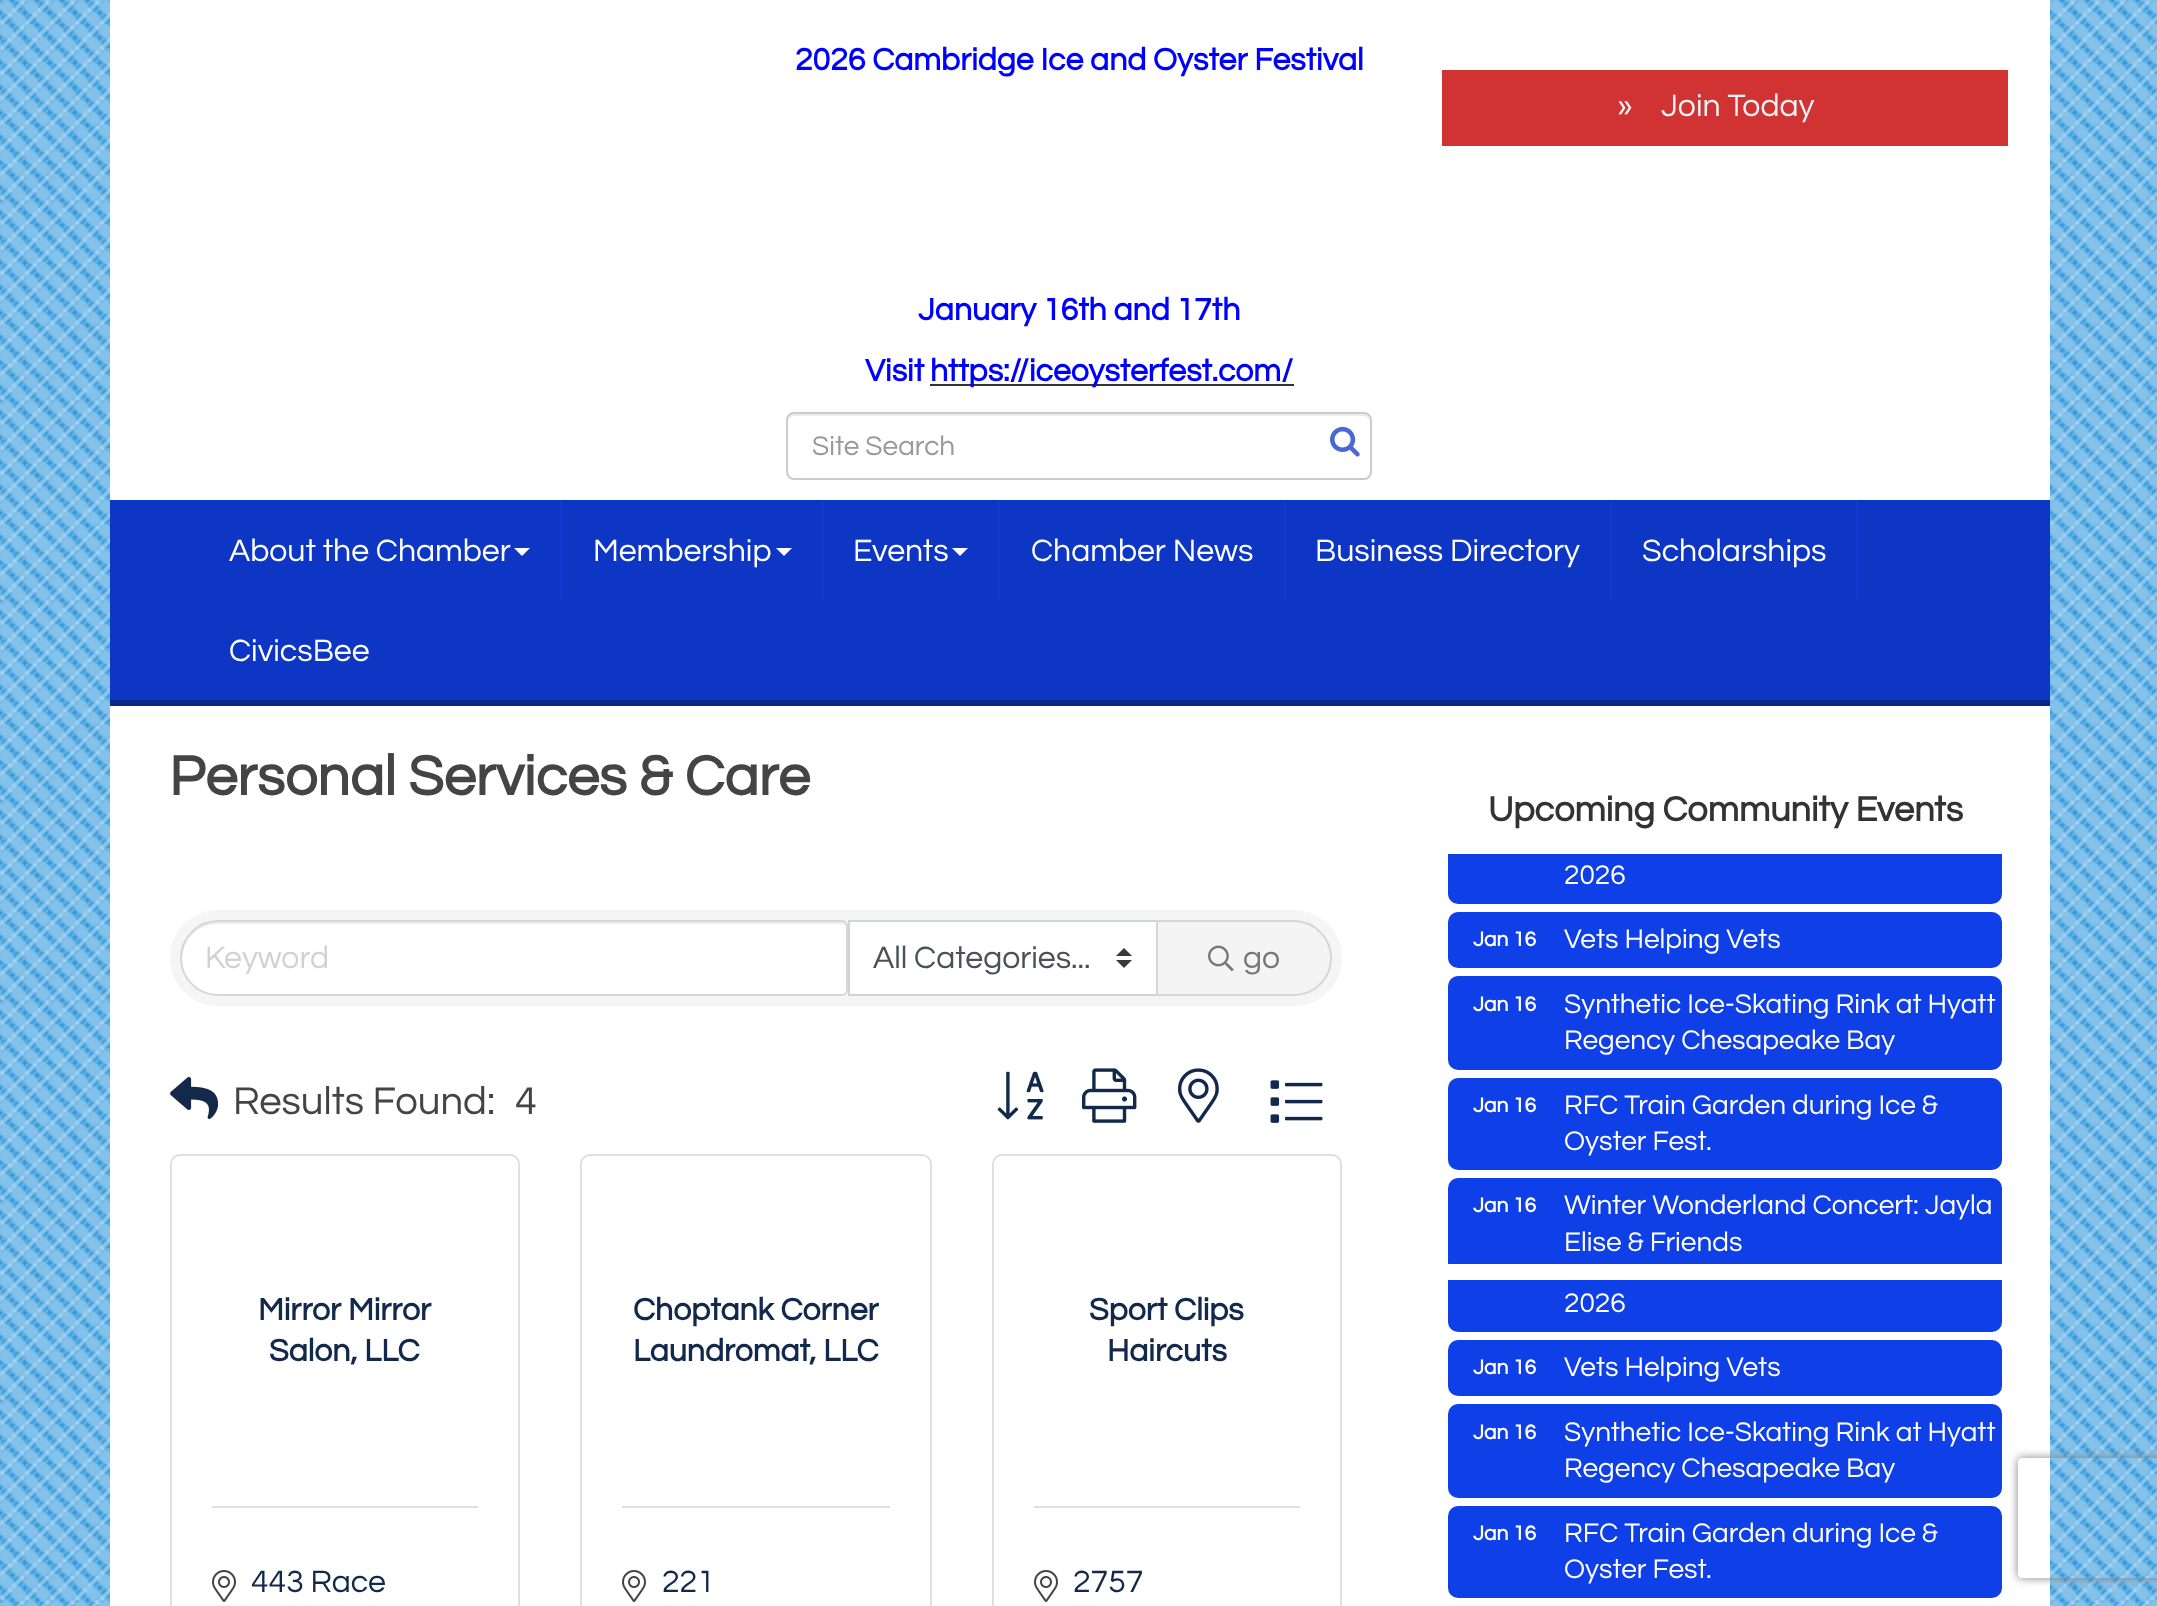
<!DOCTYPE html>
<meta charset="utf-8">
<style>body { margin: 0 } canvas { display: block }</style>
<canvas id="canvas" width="2157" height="1606"></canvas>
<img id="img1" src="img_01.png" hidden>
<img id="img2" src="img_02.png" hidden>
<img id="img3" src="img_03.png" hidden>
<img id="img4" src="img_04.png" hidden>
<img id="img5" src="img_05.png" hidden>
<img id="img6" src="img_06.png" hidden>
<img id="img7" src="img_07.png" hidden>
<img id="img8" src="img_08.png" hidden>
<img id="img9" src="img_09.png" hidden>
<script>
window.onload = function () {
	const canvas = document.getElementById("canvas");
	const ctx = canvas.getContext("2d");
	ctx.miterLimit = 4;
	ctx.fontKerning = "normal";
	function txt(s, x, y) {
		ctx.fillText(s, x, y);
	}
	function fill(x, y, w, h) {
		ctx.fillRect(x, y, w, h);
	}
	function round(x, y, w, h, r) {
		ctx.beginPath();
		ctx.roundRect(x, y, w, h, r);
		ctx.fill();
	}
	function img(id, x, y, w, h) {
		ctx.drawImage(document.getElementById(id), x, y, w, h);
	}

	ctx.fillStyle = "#2D96DB";
	fill(0, 0, 2157, 1606);
	img("img1", 0, 0, 2157, 1606);
	ctx.fillStyle = "#FFFFFF";
	fill(110, 0, 1940, 500);
	ctx.fillStyle = "#333333";
	fill(930, 384, 364, 2);
	ctx.fillStyle = "#ECECEC";
	ctx.beginPath();
	ctx.moveTo(794, 416);
	ctx.lineTo(1364, 416);
	ctx.bezierCurveTo(1367, 416, 1370, 419, 1370, 422);
	ctx.bezierCurveTo(1370, 418, 1369, 414, 1364, 414);
	ctx.lineTo(794, 414);
	ctx.bezierCurveTo(789, 414, 788, 418, 788, 422);
	ctx.bezierCurveTo(788, 419, 791, 416, 794, 416);
	ctx.closePath();
	ctx.fill();
	ctx.beginPath();
	ctx.roundRect(787, 413, 584, 66, 7);
	ctx.strokeStyle = "#CCCCCC";
	ctx.lineWidth = 2;
	ctx.stroke();
	img("img2", 1330, 426, 30, 31);
	ctx.fillStyle = "#D13333";
	fill(1442, 70, 566, 76);
	ctx.fillStyle = "#0D36C5";
	fill(110, 500, 1940, 200);
	ctx.fillStyle = "#09268A";
	fill(110, 700, 1940, 6);
	ctx.fillStyle = "#0E3BD8";
	fill(560, 500, 2, 100);
	ctx.fillStyle = "#FFFFFF";
	ctx.beginPath();
	ctx.moveTo(514, 548);
	ctx.lineTo(530, 548);
	ctx.lineTo(522, 556);
	ctx.closePath();
	ctx.fill();
	ctx.fillStyle = "#0E3BD8";
	fill(822, 500, 2, 100);
	ctx.fillStyle = "#FFFFFF";
	ctx.beginPath();
	ctx.moveTo(776, 548);
	ctx.lineTo(792, 548);
	ctx.lineTo(784, 556);
	ctx.closePath();
	ctx.fill();
	ctx.fillStyle = "#0E3BD8";
	fill(998, 500, 2, 100);
	ctx.fillStyle = "#FFFFFF";
	ctx.beginPath();
	ctx.moveTo(952, 548);
	ctx.lineTo(968, 548);
	ctx.lineTo(960, 556);
	ctx.closePath();
	ctx.fill();
	ctx.fillStyle = "#0E3BD8";
	fill(1284, 500, 2, 100);
	fill(1610, 500, 2, 100);
	fill(1856, 500, 2, 100);
	ctx.fillStyle = "#FFFFFF";
	fill(110, 706, 1940, 900);
	ctx.fillStyle = "#F5F5F5";
	round(170, 910, 1172, 96, 48);
	ctx.fillStyle = "#FFFFFF";
	ctx.beginPath();
	ctx.roundRect(182, 922, 664, 72, [36, 4, 4, 36]);
	ctx.fill();
	ctx.fillStyle = "rgba(0, 0, 0, 0.07)";
	ctx.beginPath();
	ctx.moveTo(218, 924);
	ctx.lineTo(842, 924);
	ctx.bezierCurveTo(844, 924, 846, 926, 846, 928);
	ctx.bezierCurveTo(846, 925, 846, 922, 842, 922);
	ctx.lineTo(218, 922);
	ctx.bezierCurveTo(198, 922, 181, 939, 182, 959);
	ctx.bezierCurveTo(183, 939, 198, 924, 218, 924);
	ctx.closePath();
	ctx.fill();
	ctx.beginPath();
	ctx.roundRect(181, 921, 666, 74, [37, 5, 5, 37]);
	ctx.strokeStyle = "rgba(0, 0, 0, 0.12)";
	ctx.stroke();
	ctx.fillStyle = "#FFFFFF";
	fill(850, 922, 306, 72);
	ctx.fillStyle = "#343A40";
	ctx.beginPath();
	ctx.moveTo(1124, 948);
	ctx.lineTo(1116, 956);
	ctx.lineTo(1132, 956);
	ctx.closePath();
	ctx.moveTo(1124, 968);
	ctx.lineTo(1116, 960);
	ctx.lineTo(1132, 960);
	ctx.closePath();
	ctx.fill();
	ctx.strokeStyle = "#CED4DA";
	ctx.strokeRect(849, 921, 308, 74);
	ctx.fillStyle = "#F4F4F4";
	ctx.beginPath();
	ctx.roundRect(1157, 921, 174, 74, [0, 37, 37, 0]);
	ctx.fill();
	ctx.strokeStyle = "#D6D6D6";
	ctx.stroke();
	img("img3", 1208, 945, 26, 27);
	img("img4", 170, 1077, 49, 42);
	img("img5", 997, 1071, 47, 49);
	img("img6", 1082, 1068, 55, 55);
	img("img7", 1178, 1068, 41, 55);
	img("img8", 1270, 1080, 53, 43);
	ctx.beginPath();
	ctx.roundRect(171, 1155, 348, 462, 9);
	ctx.strokeStyle = "#DFDFDF";
	ctx.stroke();
	ctx.fillStyle = "#DFDFDF";
	fill(212, 1506, 266, 2);
	img("img9", 212, 1570, 24, 32);
	ctx.beginPath();
	ctx.roundRect(581, 1155, 350, 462, 9);
	ctx.stroke();
	fill(622, 1506, 268, 2);
	img("img9", 622, 1570, 24, 32);
	ctx.beginPath();
	ctx.roundRect(993, 1155, 348, 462, 9);
	ctx.stroke();
	fill(1034, 1506, 266, 2);
	img("img9", 1034, 1570, 24, 32);
	ctx.fillStyle = "#0F3FE6";
	ctx.beginPath();
	ctx.roundRect(1448, 854, 554, 50, [0, 0, 10, 10]);
	ctx.fill();
	round(1448, 912, 554, 56, 10);
	round(1448, 976, 554, 94, 10);
	round(1448, 1078, 554, 92, 10);
	ctx.save();
	ctx.beginPath();
	ctx.rect(1448, 854, 554, 410);
	ctx.clip();
	round(1448, 1178, 554, 94, 10);
	ctx.restore();
	ctx.beginPath();
	ctx.roundRect(1448, 1280, 554, 52, [0, 0, 10, 10]);
	ctx.fill();
	round(1448, 1340, 554, 56, 10);
	round(1448, 1404, 554, 94, 10);
	round(1448, 1506, 554, 92, 10);
	ctx.save();
	ctx.beginPath();
	ctx.moveTo(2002, 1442);
	ctx.lineTo(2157, 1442);
	ctx.lineTo(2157, 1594);
	ctx.lineTo(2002, 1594);
	ctx.closePath();
	ctx.moveTo(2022, 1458);
	ctx.lineTo(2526, 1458);
	ctx.bezierCurveTo(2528, 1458, 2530, 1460, 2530, 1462);
	ctx.lineTo(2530, 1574);
	ctx.bezierCurveTo(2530, 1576, 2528, 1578, 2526, 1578);
	ctx.lineTo(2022, 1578);
	ctx.bezierCurveTo(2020, 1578, 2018, 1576, 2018, 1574);
	ctx.lineTo(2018, 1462);
	ctx.bezierCurveTo(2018, 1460, 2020, 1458, 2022, 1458);
	ctx.closePath();
	ctx.clip("evenodd");
	ctx.fillStyle = "#808080";
	ctx.filter = "blur(5px)";
	ctx.beginPath();
	ctx.roundRect(2018, 1458, 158, 120, 4);
	ctx.fill();
	ctx.filter = "none";
	ctx.restore();
	ctx.font = "bold 32px Questrial";
	ctx.fillStyle = "#0000FF";
	txt("2026 Cambridge Ice and Oyster Festival", 795, 70);
	txt("January 16th and 17th", 918, 320);
	txt("Visit", 865, 381);
	txt("https://iceoysterfest.com/", 930, 381);
	ctx.font = "28px Questrial";
	ctx.fillStyle = "#999999";
	txt("Site Search", 812, 455);
	ctx.font = "32px Questrial";
	ctx.fillStyle = "#ECF1F6";
	txt("»", 1617, 116);
	txt("Join Today", 1661, 116);
	ctx.fillStyle = "#FFFFFF";
	txt("About the Chamber", 229, 561);
	txt("Membership", 593, 561);
	txt("Events", 853, 561);
	txt("Chamber News", 1031, 561);
	txt("Business Directory", 1315, 561);
	txt("Scholarships", 1642, 561);
	txt("CivicsBee", 229, 661);
	ctx.font = "bold 57.6px Questrial";
	ctx.fillStyle = "#444444";
	txt("Personal Services & Care", 169, 795);
	ctx.save();
	ctx.beginPath();
	ctx.rect(206, 942, 616, 32);
	ctx.clip();
	ctx.font = "32px Questrial";
	ctx.fillStyle = "#D2D2D2";
	txt("Keyword", 205, 968);
	ctx.restore();
	ctx.font = "32px Questrial";
	ctx.fillStyle = "#495057";
	txt("All Categories...", 873, 968);
	ctx.fillStyle = "#777777";
	txt("go", 1243, 968);
	ctx.font = "40px Questrial";
	ctx.fillStyle = "#444444";
	txt("Results Found:", 233, 1114);
	txt("4", 515, 1114);
	ctx.font = "bold 32px Questrial";
	ctx.fillStyle = "#12294C";
	txt("Mirror Mirror", 258, 1320);
	txt("Salon, LLC", 269, 1361);
	ctx.font = "32px Questrial";
	txt("443 Race", 251, 1592);
	ctx.font = "bold 32px Questrial";
	txt("Choptank Corner", 633, 1320);
	txt("Laundromat, LLC", 633, 1361);
	ctx.font = "32px Questrial";
	txt("221", 662, 1592);
	ctx.font = "bold 32px Questrial";
	txt("Sport Clips", 1089, 1320);
	txt("Haircuts", 1107, 1361);
	ctx.font = "32px Questrial";
	txt("2757", 1073, 1592);
	ctx.font = "bold 36px Questrial";
	ctx.fillStyle = "#333333";
	txt("Upcoming Community Events", 1488, 821);
	ctx.font = "28px Questrial";
	ctx.fillStyle = "#FFFFFF";
	txt("2026", 1564, 884);
	ctx.font = "bold 21px Questrial";
	txt("Jan 16", 1473, 946);
	ctx.font = "28px Questrial";
	txt("Vets Helping Vets", 1564, 948);
	ctx.font = "bold 21px Questrial";
	txt("Jan 16", 1473, 1011);
	ctx.font = "28px Questrial";
	txt("Synthetic Ice-Skating Rink at Hyatt", 1564, 1013);
	txt("Regency Chesapeake Bay", 1564, 1049);
	ctx.font = "bold 21px Questrial";
	txt("Jan 16", 1473, 1112);
	ctx.font = "28px Questrial";
	txt("RFC Train Garden during Ice &", 1564, 1114);
	txt("Oyster Fest.", 1564, 1150);
	ctx.font = "bold 21px Questrial";
	txt("Jan 16", 1473, 1212);
	ctx.font = "28px Questrial";
	txt("Winter Wonderland Concert: Jayla", 1564, 1214);
	txt("Elise & Friends", 1564, 1251);
	txt("2026", 1564, 1312);
	ctx.font = "bold 21px Questrial";
	txt("Jan 16", 1473, 1374);
	ctx.font = "28px Questrial";
	txt("Vets Helping Vets", 1564, 1376);
	ctx.font = "bold 21px Questrial";
	txt("Jan 16", 1473, 1439);
	ctx.font = "28px Questrial";
	txt("Synthetic Ice-Skating Rink at Hyatt", 1564, 1441);
	txt("Regency Chesapeake Bay", 1564, 1477);
	ctx.font = "bold 21px Questrial";
	txt("Jan 16", 1473, 1540);
	ctx.font = "28px Questrial";
	txt("RFC Train Garden during Ice &", 1564, 1542);
	txt("Oyster Fest.", 1564, 1578);
};
</script>
